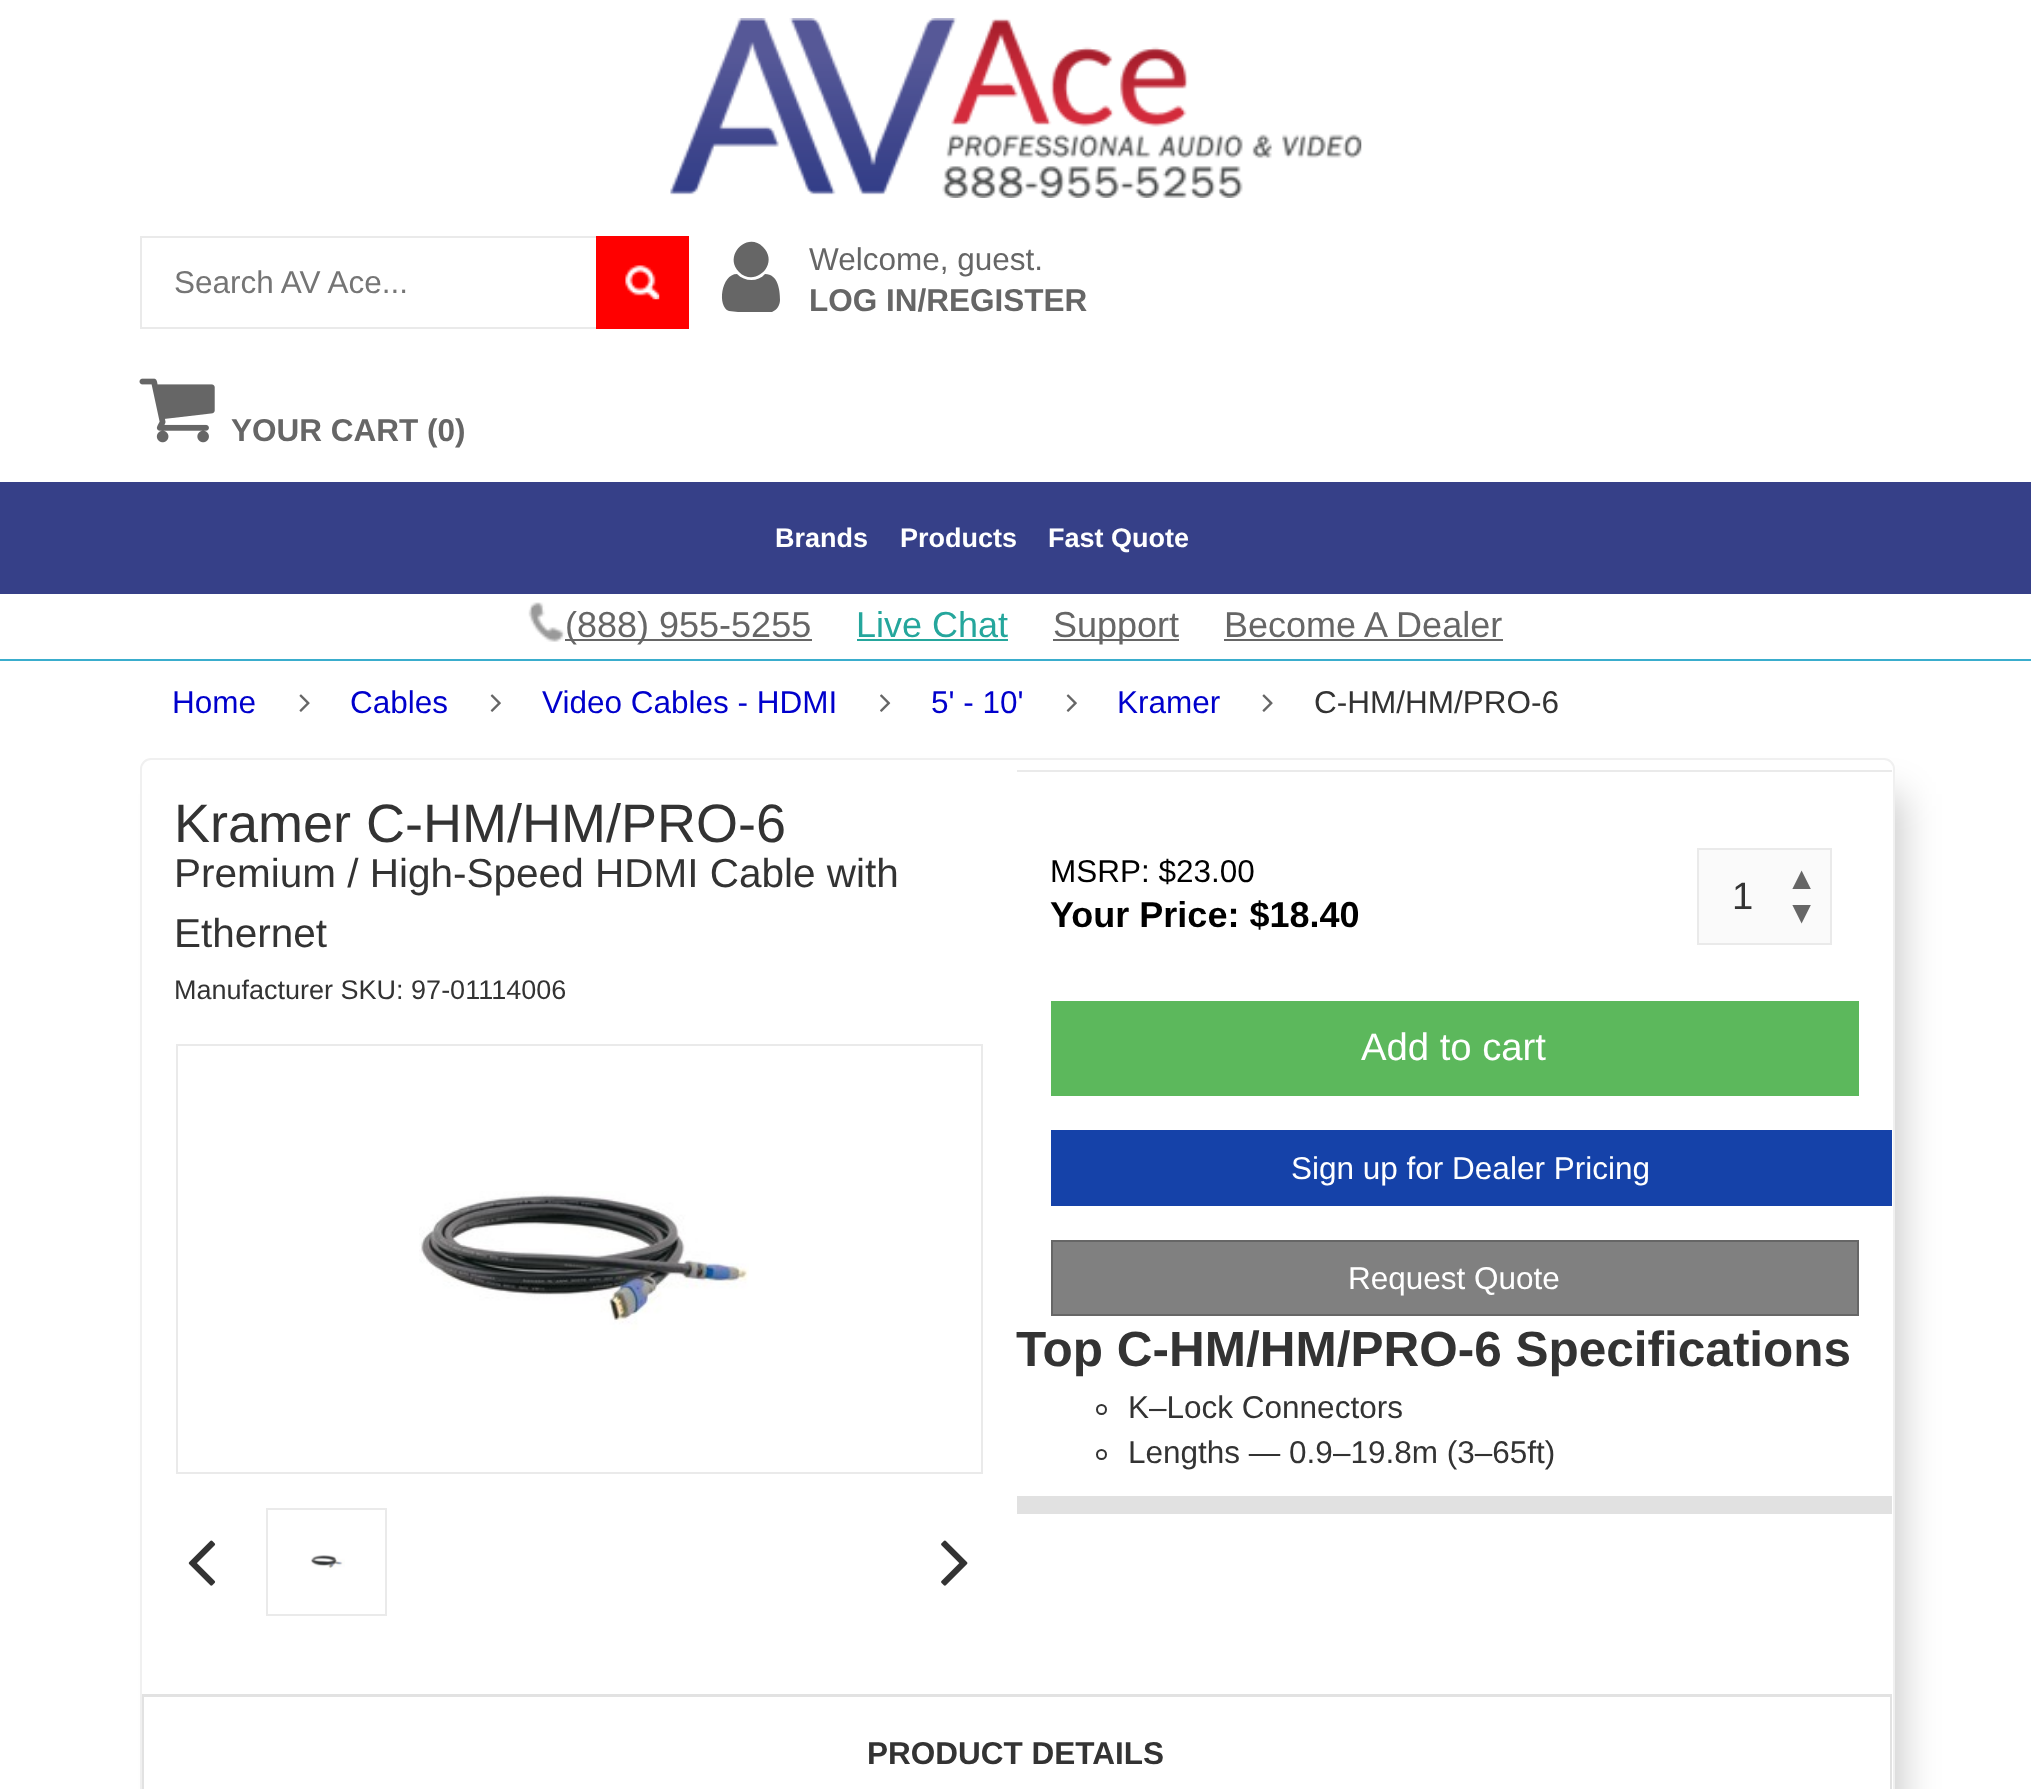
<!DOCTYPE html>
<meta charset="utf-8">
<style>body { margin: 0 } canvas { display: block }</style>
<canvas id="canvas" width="2031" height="1789"></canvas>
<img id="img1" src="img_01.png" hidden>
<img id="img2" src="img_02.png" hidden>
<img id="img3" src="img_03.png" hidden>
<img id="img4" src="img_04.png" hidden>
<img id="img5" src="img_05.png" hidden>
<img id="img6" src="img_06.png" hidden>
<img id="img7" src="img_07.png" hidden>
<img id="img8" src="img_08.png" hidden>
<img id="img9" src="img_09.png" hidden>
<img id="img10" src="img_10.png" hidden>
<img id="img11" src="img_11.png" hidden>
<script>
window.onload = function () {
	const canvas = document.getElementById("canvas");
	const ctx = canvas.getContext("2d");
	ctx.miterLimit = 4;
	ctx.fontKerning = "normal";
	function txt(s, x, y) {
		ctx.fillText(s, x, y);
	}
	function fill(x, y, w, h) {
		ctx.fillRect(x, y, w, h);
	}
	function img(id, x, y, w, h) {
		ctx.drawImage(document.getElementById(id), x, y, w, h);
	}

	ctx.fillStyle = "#FFFFFF";
	fill(0, 0, 2031, 1789);
	img("img1", 670, 18, 692, 180);
	ctx.strokeStyle = "#EAEAEA";
	ctx.lineWidth = 2;
	ctx.strokeRect(141, 237, 547, 91);
	ctx.fillStyle = "#FF0000";
	fill(596, 236, 93, 93);
	img("img2", 625, 265, 35, 35);
	ctx.fillStyle = "#666666";
	ctx.beginPath();
	ctx.moveTo(780, 300);
	ctx.bezierCurveTo(780, 305, 777, 310, 772, 312);
	ctx.lineTo(738, 312);
	ctx.lineTo(729, 311);
	ctx.bezierCurveTo(717, 307, 721, 274, 737, 274);
	ctx.bezierCurveTo(745, 282, 758, 282, 765, 274);
	ctx.bezierCurveTo(778, 274, 780, 290, 780, 300);
	ctx.closePath();
	ctx.moveTo(763, 247);
	ctx.bezierCurveTo(780, 264, 755, 288, 739, 272);
	ctx.bezierCurveTo(723, 256, 747, 231, 763, 247);
	ctx.closePath();
	ctx.fill();
	img("img3", 139, 378, 76, 65);
	ctx.fillStyle = "#364088";
	fill(0, 482, 2031, 112);
	ctx.fillStyle = "#3AADCD";
	fill(0, 659, 2031, 2);
	img("img4", 528, 602, 37, 40);
	ctx.fillStyle = "#666666";
	fill(565, 639, 247, 2);
	ctx.fillStyle = "#25A69C";
	fill(857, 639, 151, 2);
	ctx.fillStyle = "#666666";
	fill(1053, 639, 126, 2);
	fill(1224, 639, 279, 2);
	img("img5", 299, 694, 11, 18);
	img("img6", 490, 694, 11, 18);
	img("img7", 880, 694, 11, 18);
	img("img6", 1066, 694, 11, 18);
	img("img5", 1262, 694, 11, 18);
	ctx.fillStyle = "rgba(0, 0, 0, 0.19)";
	ctx.filter = "blur(18px)";
	ctx.beginPath();
	ctx.rect(176, 794, 1728, 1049);
	ctx.fill();
	ctx.filter = "none";
	ctx.fillStyle = "#FFFFFF";
	ctx.beginPath();
	ctx.roundRect(141, 759, 1753, 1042, 10);
	ctx.fill();
	ctx.strokeStyle = "#F0F0F0";
	ctx.stroke();
	ctx.strokeStyle = "#EAEAEA";
	ctx.strokeRect(177, 1045, 805, 428);
	img("img8", 419, 1191, 330, 139);
	ctx.strokeRect(267, 1509, 119, 106);
	img("img9", 310, 1555, 35, 15);
	img("img10", 188, 1540, 28, 46);
	img("img11", 941, 1540, 27, 46);
	ctx.fillStyle = "#E1E1E1";
	fill(1017, 1496, 875, 18);
	ctx.fillStyle = "#EAEAEA";
	fill(1017, 770, 875, 2);
	ctx.fillStyle = "#FAFAFA";
	ctx.beginPath();
	ctx.rect(1698, 849, 133, 95);
	ctx.fill();
	ctx.stroke();
	ctx.fillStyle = "#5CB85C";
	fill(1051, 1001, 808, 95);
	ctx.fillStyle = "#1542A9";
	fill(1051, 1130, 841, 76);
	ctx.fillStyle = "#808080";
	ctx.beginPath();
	ctx.rect(1052, 1241, 806, 74);
	ctx.fill();
	ctx.strokeStyle = "#666666";
	ctx.stroke();
	ctx.beginPath();
	ctx.arc(1101.5, 1409.5, 4.5, 0, Math.PI * 2);
	ctx.strokeStyle = "#333333";
	ctx.stroke();
	ctx.beginPath();
	ctx.arc(1101.5, 1454.5, 4.5, 0, Math.PI * 2);
	ctx.stroke();
	ctx.fillStyle = "#E2E2E2";
	fill(142, 1694, 1750, 95);
	ctx.fillStyle = "#FFFFFF";
	fill(144, 1697, 1746, 92);
	ctx.font = "31.5px Liberation Sans";
	ctx.fillStyle = "#757575";
	txt("Search AV Ace...", 174, 293);
	ctx.fillStyle = "#666666";
	txt("Welcome, guest.", 809, 270);
	ctx.font = "bold 31.5px Liberation Sans";
	txt("LOG IN/REGISTER", 809, 311);
	txt("YOUR CART (0)", 231, 441);
	ctx.font = "bold 27px Liberation Sans";
	ctx.fillStyle = "#FFFFFF";
	txt("Brands", 775, 547);
	txt("Products", 900, 547);
	txt("Fast Quote", 1048, 547);
	ctx.font = "36px Liberation Sans";
	ctx.fillStyle = "#666666";
	txt("(888) 955-5255", 565, 637);
	ctx.fillStyle = "#25A69C";
	txt("Live Chat", 856, 637);
	ctx.fillStyle = "#666666";
	txt("Support", 1053, 637);
	txt("Become A Dealer", 1224, 637);
	ctx.font = "31.5px Liberation Sans";
	ctx.fillStyle = "#0000CC";
	txt("Home", 172, 713);
	txt("Cables", 350, 713);
	txt("Video Cables - HDMI", 542, 713);
	txt("5' - 10'", 931, 713);
	txt("Kramer", 1117, 713);
	ctx.fillStyle = "#333333";
	txt("C-HM/HM/PRO-6", 1314, 713);
	ctx.font = "54px Liberation Sans";
	txt("Kramer C-HM/HM/PRO-6", 174, 842);
	ctx.font = "40.5px Liberation Sans";
	txt("Premium / High-Speed HDMI Cable with", 174, 887);
	txt("Ethernet", 174, 947);
	ctx.font = "27px Liberation Sans";
	txt("Manufacturer SKU: 97-01114006", 174, 999);
	ctx.font = "31.5px Liberation Sans";
	ctx.fillStyle = "#000000";
	txt("MSRP: $23.00", 1050, 882);
	ctx.font = "bold 36px Liberation Sans";
	txt("Your Price: $18.40", 1050, 927);
	ctx.font = "38.25px Liberation Sans";
	ctx.fillStyle = "#333333";
	txt("1", 1732, 909);
	ctx.font = "31.5px Liberation Serif";
	ctx.fillStyle = "#666666";
	txt("▲", 1786, 889);
	txt("▼", 1786, 923);
	ctx.font = "38.25px Liberation Sans";
	ctx.fillStyle = "#FFFFFF";
	txt("Add to cart", 1361, 1060);
	ctx.font = "31.5px Liberation Sans";
	txt("Sign up for Dealer Pricing", 1291, 1179);
	txt("Request Quote", 1348, 1289);
	ctx.font = "bold 49.5px Liberation Sans";
	ctx.fillStyle = "#333333";
	txt("Top C-HM/HM/PRO-6 Specifications", 1016, 1366);
	ctx.font = "31.5px Liberation Sans";
	txt("K–Lock Connectors", 1128, 1418);
	txt("Lengths — 0.9–19.8m (3–65ft)", 1128, 1463);
	ctx.font = "bold 31.5px Liberation Sans";
	txt("PRODUCT DETAILS", 867, 1764);
};
</script>
